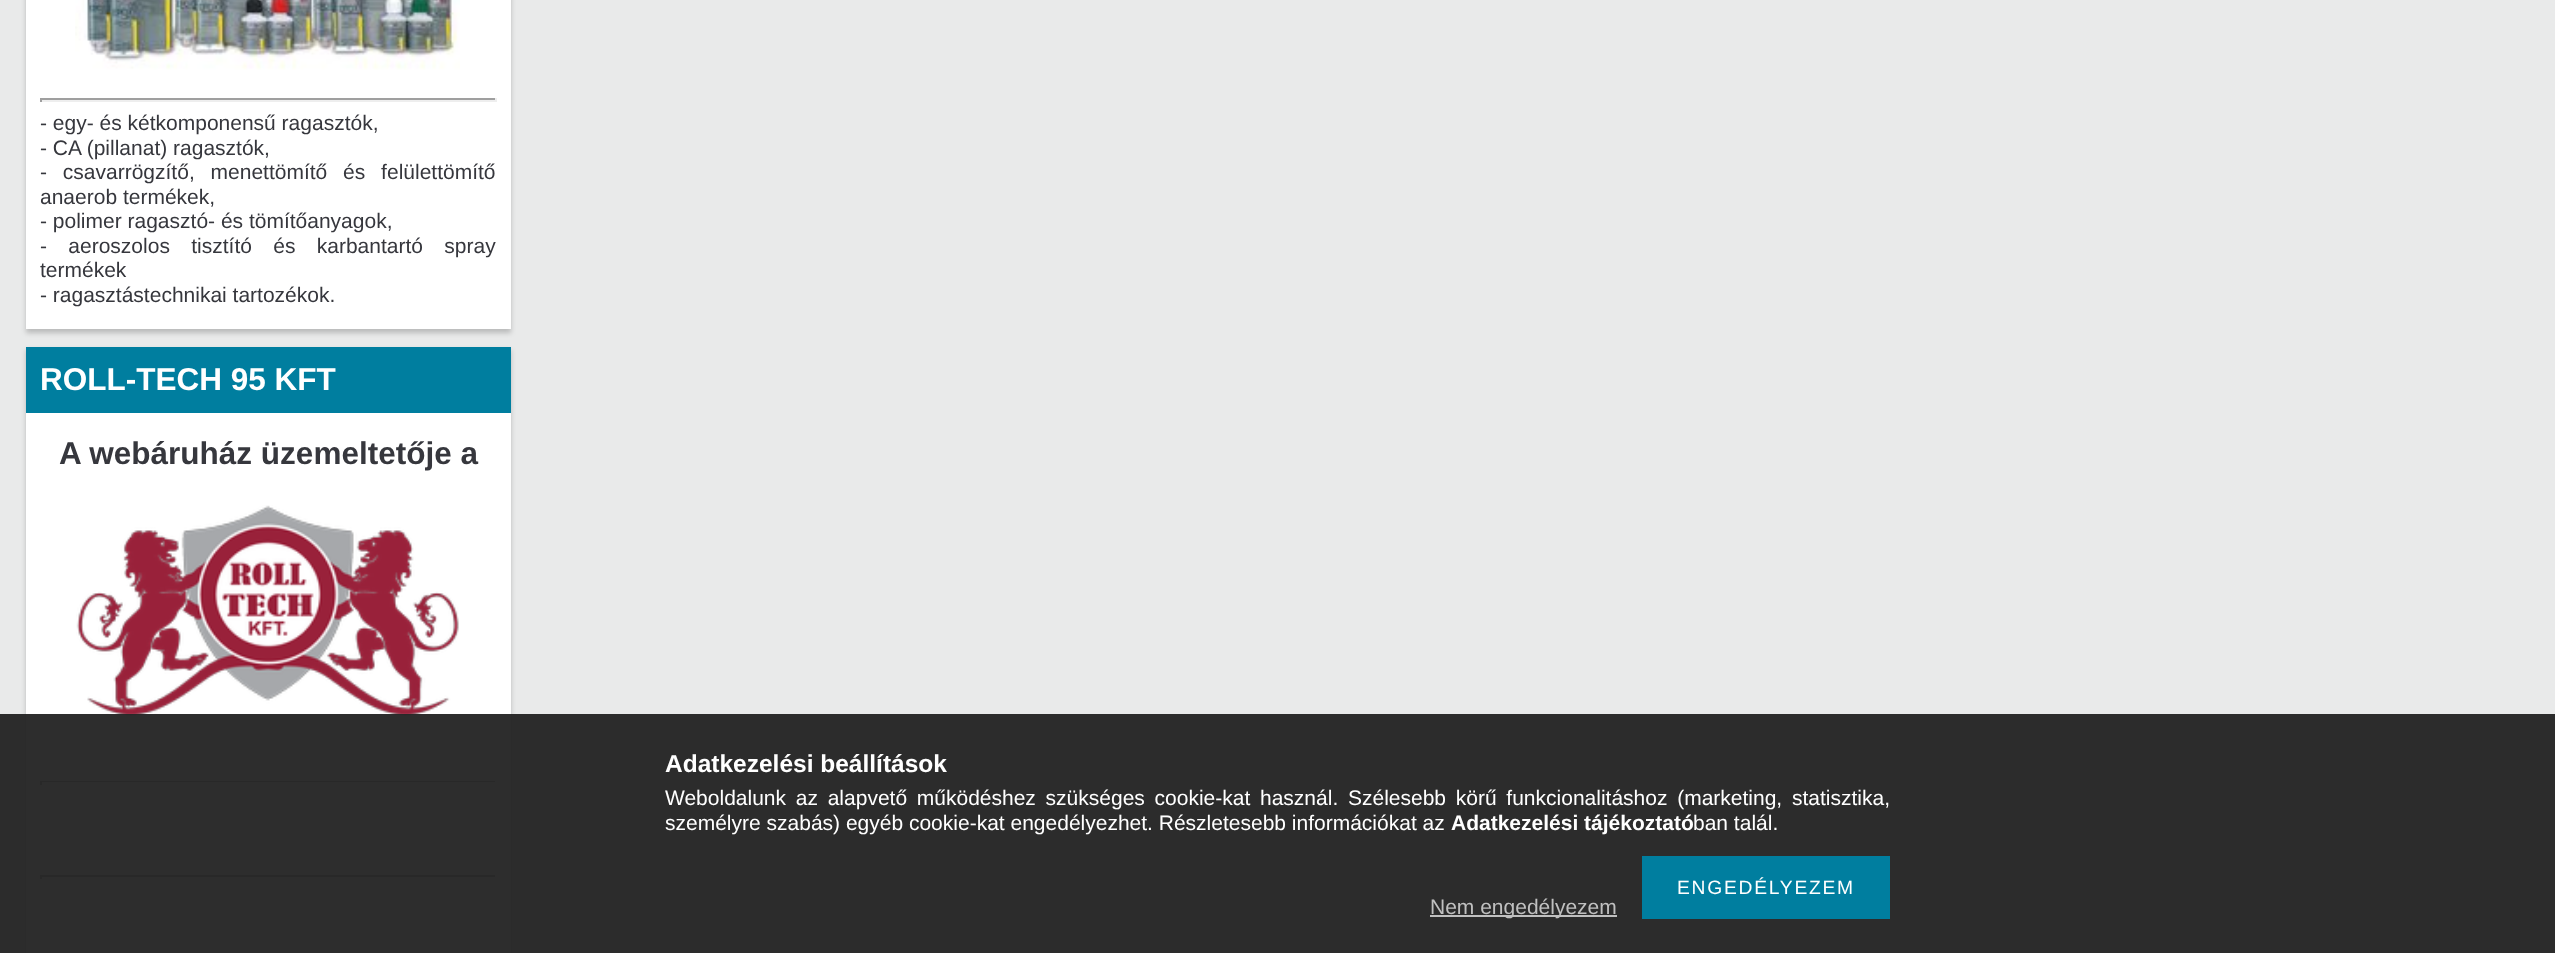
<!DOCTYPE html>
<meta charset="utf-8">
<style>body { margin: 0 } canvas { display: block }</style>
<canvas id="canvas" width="2555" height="953"></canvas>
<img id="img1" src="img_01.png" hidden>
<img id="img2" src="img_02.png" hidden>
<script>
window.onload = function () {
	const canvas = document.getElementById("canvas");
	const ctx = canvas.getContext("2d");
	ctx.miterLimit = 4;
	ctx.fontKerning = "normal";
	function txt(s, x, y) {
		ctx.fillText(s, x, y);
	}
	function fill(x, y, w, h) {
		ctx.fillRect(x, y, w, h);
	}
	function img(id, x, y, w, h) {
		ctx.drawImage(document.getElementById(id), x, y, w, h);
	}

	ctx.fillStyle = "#E9EAEA";
	fill(0, 0, 2555, 953);
	ctx.fillStyle = "rgba(0, 0, 0, 0.2)";
	ctx.filter = "blur(2.5px)";
	ctx.beginPath();
	ctx.rect(26, -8, 485, 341);
	ctx.fill();
	ctx.filter = "none";
	ctx.fillStyle = "#FFFFFF";
	fill(26, 0, 485, 329);
	img("img1", 75, 0, 385, 70);
	ctx.fillStyle = "#9F9F9F";
	fill(40, 98, 457, 2);
	ctx.fillStyle = "#EEEEEE";
	fill(495, 98, 2, 4);
	fill(40, 100, 457, 2);
	ctx.fillStyle = "#9F9F9F";
	fill(40, 98, 2, 4);
	ctx.fillStyle = "rgba(0, 0, 0, 0.2)";
	ctx.filter = "blur(2.5px)";
	ctx.beginPath();
	ctx.rect(26, 350, 485, 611);
	ctx.fill();
	ctx.filter = "none";
	ctx.fillStyle = "#007E9F";
	fill(26, 347, 485, 66);
	ctx.fillStyle = "#FFFFFF";
	fill(26, 413, 485, 540);
	img("img2", 76, 505, 383, 212);
	ctx.fillStyle = "#9F9F9F";
	fill(40, 781, 457, 1);
	ctx.fillStyle = "#EEEEEE";
	fill(495, 781, 2, 4);
	fill(40, 782, 457, 2);
	ctx.fillStyle = "#9F9F9F";
	fill(40, 781, 2, 4);
	fill(40, 875, 457, 2);
	ctx.fillStyle = "#EEEEEE";
	fill(495, 875, 2, 4);
	fill(40, 877, 457, 2);
	ctx.fillStyle = "#9F9F9F";
	fill(40, 875, 2, 4);
	ctx.fillStyle = "rgba(34, 34, 34, 0.95)";
	fill(0, 714, 2555, 239);
	ctx.fillStyle = "#007E9F";
	fill(1642, 856, 248, 63);
	ctx.fillStyle = "#C0C0C0";
	fill(1430, 915, 187, 2);
	ctx.font = "21px Liberation Sans";
	ctx.fillStyle = "#36373D";
	txt("- egy- és kétkomponensű ragasztók,", 40, 130);
	txt("- CA (pillanat) ragasztók,", 40, 155);
	ctx.wordSpacing = "10px";
	txt("- csavarrögzítő, menettömítő és felülettömítő", 40, 179);
	ctx.wordSpacing = "0px";
	txt("anaerob termékek,", 40, 204);
	txt("- polimer ragasztó- és tömítőanyagok,", 40, 228);
	ctx.wordSpacing = "15.5px";
	txt("- aeroszolos tisztító és karbantartó spray", 40, 253);
	ctx.wordSpacing = "0px";
	txt("termékek", 40, 277);
	txt("- ragasztástechnikai tartozékok.", 40, 302);
	ctx.font = "bold 31.5px Liberation Sans";
	ctx.fillStyle = "#FFFFFF";
	txt("ROLL-TECH 95 KFT", 40, 390);
	ctx.fillStyle = "#36373D";
	txt("A webáruház üzemeltetője a", 59, 464);
	ctx.font = "bold 24.5px Liberation Sans";
	ctx.fillStyle = "#FFFFFF";
	txt("Adatkezelési beállítások", 665, 772);
	ctx.wordSpacing = "3.9px";
	ctx.font = "21px Liberation Sans";
	txt("Weboldalunk az alapvető működéshez szükséges cookie-kat használ. Szélesebb körű funkcionalitáshoz (marketing, statisztika,", 665, 805);
	ctx.wordSpacing = "0px";
	txt("személyre szabás) egyéb cookie-kat engedélyezhet. Részletesebb információkat az", 665, 830);
	ctx.font = "bold 21px Liberation Sans";
	txt("Adatkezelési tájékoztató", 1451, 830);
	ctx.font = "21px Liberation Sans";
	txt("ban talál.", 1693, 830);
	ctx.letterSpacing = "1.75px";
	ctx.font = "19.25px Liberation Sans";
	txt("ENGEDÉLYEZEM", 1677, 894);
	ctx.letterSpacing = "0px";
	ctx.font = "21px Liberation Sans";
	ctx.fillStyle = "#C0C0C0";
	txt("Nem engedélyezem", 1430, 914);
};
</script>
